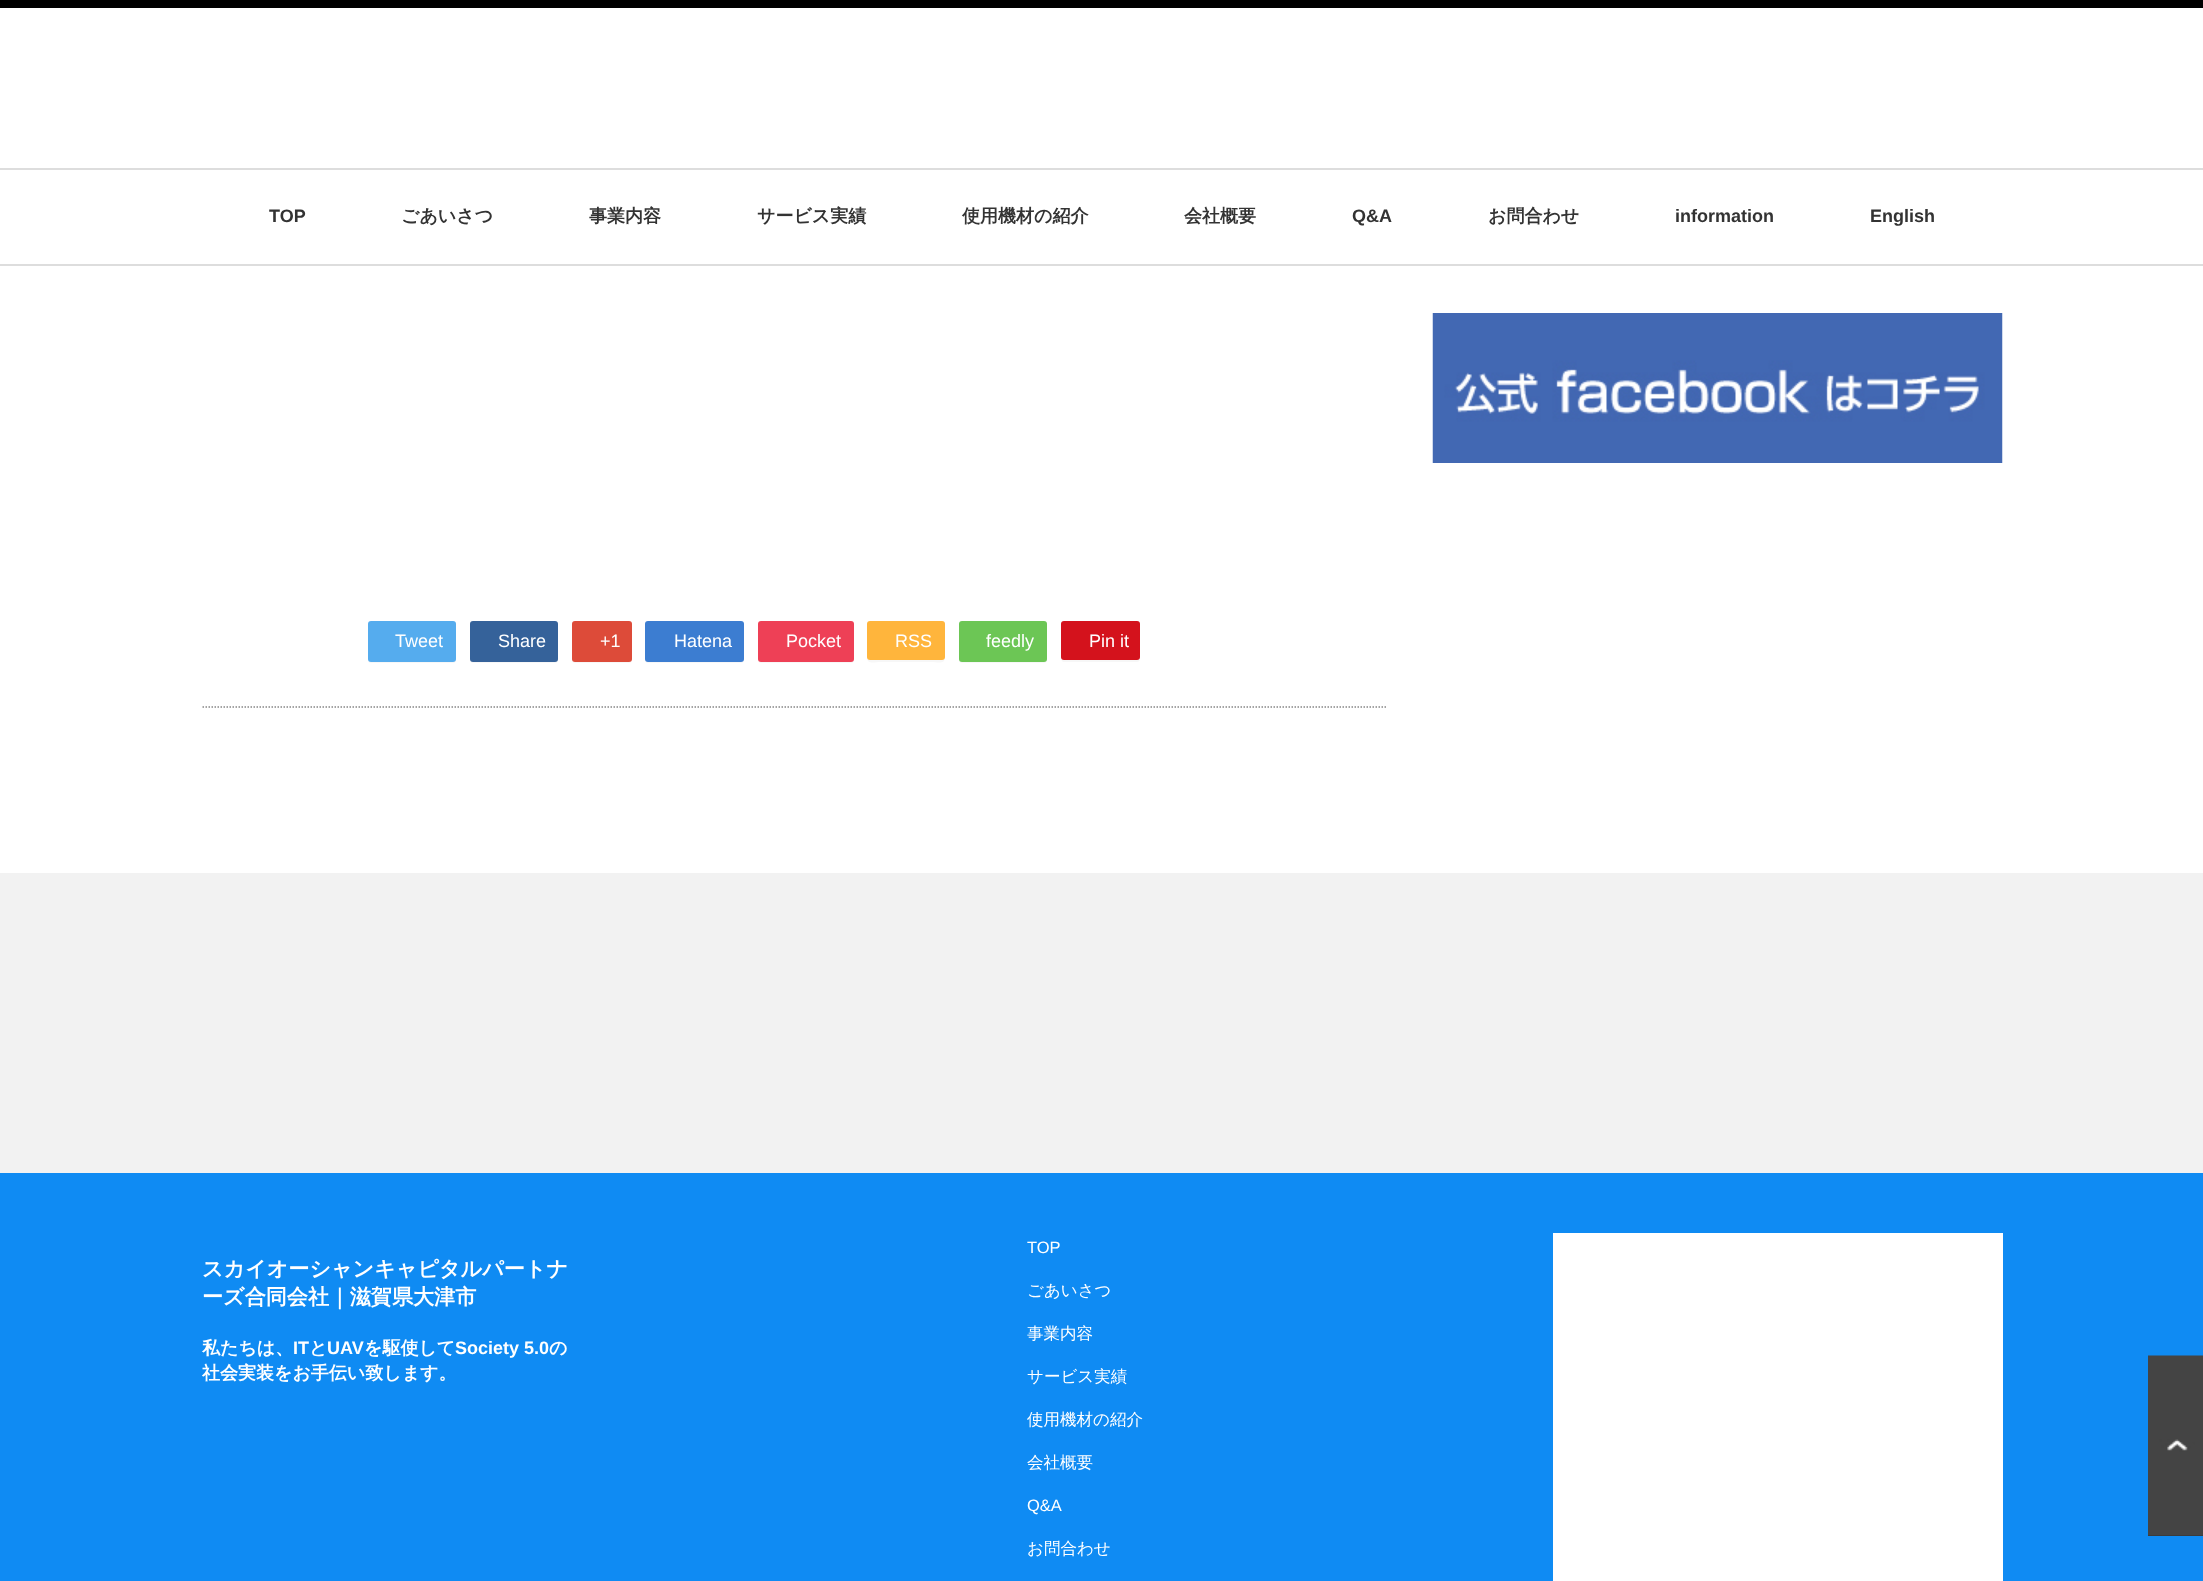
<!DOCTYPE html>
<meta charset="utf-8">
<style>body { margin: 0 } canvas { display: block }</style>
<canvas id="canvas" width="2203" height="1581"></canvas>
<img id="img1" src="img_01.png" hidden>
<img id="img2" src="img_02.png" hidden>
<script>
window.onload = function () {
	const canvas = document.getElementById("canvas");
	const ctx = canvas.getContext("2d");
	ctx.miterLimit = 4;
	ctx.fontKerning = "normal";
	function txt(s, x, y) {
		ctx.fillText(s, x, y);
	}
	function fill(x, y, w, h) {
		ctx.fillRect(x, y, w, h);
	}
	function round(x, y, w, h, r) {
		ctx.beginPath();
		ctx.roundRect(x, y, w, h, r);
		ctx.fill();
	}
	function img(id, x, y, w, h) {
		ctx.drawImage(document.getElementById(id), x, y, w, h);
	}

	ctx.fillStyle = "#FFFFFF";
	fill(0, 0, 2203, 1581);
	ctx.fillStyle = "#000000";
	fill(0, 0, 2203, 8);
	ctx.fillStyle = "#DDDDDD";
	fill(0, 264, 2203, 2);
	fill(0, 168, 2203, 2);
	img("img1", 1432, 313, 571, 150);
	ctx.beginPath();
	ctx.moveTo(202.5, 707);
	ctx.lineTo(1387.5, 707);
	ctx.strokeStyle = "#878787";
	ctx.lineWidth = 1.5;
	ctx.setLineDash([1.5, 1.5]);
	ctx.stroke();
	ctx.fillStyle = "#F7F7F7";
	ctx.beginPath();
	ctx.moveTo(368, 660);
	ctx.bezierCurveTo(368, 662, 369, 663, 371, 663);
	ctx.lineTo(453, 663);
	ctx.bezierCurveTo(455, 663, 456, 662, 456, 660);
	ctx.lineTo(456, 658);
	ctx.bezierCurveTo(456, 660, 455, 661, 453, 662);
	ctx.lineTo(370, 661);
	ctx.closePath();
	ctx.fill();
	ctx.fillStyle = "#55ACEE";
	round(368, 621, 88, 41, 3);
	ctx.fillStyle = "#F7F7F7";
	ctx.beginPath();
	ctx.moveTo(470, 660);
	ctx.bezierCurveTo(470, 662, 471, 663, 473, 663);
	ctx.lineTo(555, 663);
	ctx.bezierCurveTo(557, 663, 558, 662, 558, 660);
	ctx.lineTo(558, 658);
	ctx.bezierCurveTo(558, 660, 557, 661, 555, 662);
	ctx.lineTo(472, 661);
	ctx.closePath();
	ctx.fill();
	ctx.fillStyle = "#35629A";
	round(470, 621, 88, 41, 3);
	ctx.fillStyle = "#F7F7F7";
	ctx.beginPath();
	ctx.moveTo(572, 660);
	ctx.bezierCurveTo(572, 662, 573, 663, 575, 663);
	ctx.lineTo(629, 663);
	ctx.bezierCurveTo(631, 663, 632, 662, 632, 660);
	ctx.lineTo(632, 626);
	ctx.lineTo(632, 624);
	ctx.lineTo(632, 658);
	ctx.bezierCurveTo(632, 660, 630, 662, 628, 662);
	ctx.lineTo(574, 662);
	ctx.bezierCurveTo(573, 662, 573, 661, 572, 660);
	ctx.closePath();
	ctx.fill();
	ctx.fillStyle = "#DD4B39";
	round(572, 621, 60, 41, 3);
	ctx.fillStyle = "#F7F7F7";
	ctx.beginPath();
	ctx.moveTo(645, 658);
	ctx.lineTo(645, 660);
	ctx.bezierCurveTo(645, 662, 646, 663, 648, 663);
	ctx.lineTo(741, 663);
	ctx.bezierCurveTo(743, 663, 744, 662, 744, 660);
	ctx.lineTo(744, 658);
	ctx.bezierCurveTo(744, 660, 743, 662, 741, 662);
	ctx.lineTo(648, 662);
	ctx.bezierCurveTo(646, 662, 645, 660, 645, 658);
	ctx.closePath();
	ctx.fill();
	ctx.fillStyle = "#3C7DD1";
	round(645, 621, 99, 41, 3);
	ctx.fillStyle = "#F7F7F7";
	ctx.beginPath();
	ctx.moveTo(758, 660);
	ctx.bezierCurveTo(758, 662, 759, 663, 761, 663);
	ctx.lineTo(851, 663);
	ctx.bezierCurveTo(853, 663, 854, 662, 854, 660);
	ctx.lineTo(854, 626);
	ctx.lineTo(854, 624);
	ctx.lineTo(854, 658);
	ctx.bezierCurveTo(854, 660, 852, 662, 850, 662);
	ctx.lineTo(760, 662);
	ctx.bezierCurveTo(759, 662, 759, 661, 758, 660);
	ctx.closePath();
	ctx.fill();
	ctx.fillStyle = "#EE4056";
	round(758, 621, 96, 41, 3);
	ctx.fillStyle = "#F7F7F7";
	ctx.beginPath();
	ctx.moveTo(867, 657);
	ctx.bezierCurveTo(867, 665, 874, 662, 882, 662);
	ctx.lineTo(930, 662);
	ctx.bezierCurveTo(938, 662, 945, 665, 945, 657);
	ctx.bezierCurveTo(945, 659, 944, 660, 942, 660);
	ctx.lineTo(870, 660);
	ctx.bezierCurveTo(868, 660, 867, 659, 867, 657);
	ctx.closePath();
	ctx.fill();
	ctx.fillStyle = "#FFB53C";
	round(867, 621, 78, 39, 3);
	ctx.fillStyle = "#F7F7F7";
	ctx.beginPath();
	ctx.moveTo(959, 660);
	ctx.bezierCurveTo(959, 662, 960, 663, 962, 663);
	ctx.lineTo(1044, 663);
	ctx.bezierCurveTo(1046, 663, 1047, 662, 1047, 660);
	ctx.lineTo(1047, 658);
	ctx.bezierCurveTo(1047, 660, 1046, 661, 1044, 662);
	ctx.lineTo(961, 661);
	ctx.closePath();
	ctx.fill();
	ctx.fillStyle = "#6CC655";
	round(959, 621, 88, 41, 3);
	ctx.fillStyle = "#F7F7F7";
	ctx.beginPath();
	ctx.moveTo(1061, 659);
	ctx.lineTo(1062, 661);
	ctx.lineTo(1063, 662);
	ctx.lineTo(1137, 662);
	ctx.bezierCurveTo(1140, 662, 1140, 659, 1140, 657);
	ctx.bezierCurveTo(1140, 659, 1139, 660, 1137, 660);
	ctx.lineTo(1064, 660);
	ctx.bezierCurveTo(1062, 660, 1062, 659, 1061, 659);
	ctx.closePath();
	ctx.fill();
	ctx.fillStyle = "#D4121C";
	round(1061, 621, 79, 39, 3);
	ctx.fillStyle = "#F2F2F2";
	fill(0, 873, 2203, 300);
	ctx.fillStyle = "#0F8BF3";
	fill(0, 1173, 2203, 408);
	ctx.fillStyle = "#FFFFFF";
	fill(1553, 1233, 450, 348);
	ctx.fillStyle = "#333333";
	fill(2148, 1535, 55, 1);
	img("img2", 2148, 1355, 55, 181);
	ctx.font = "bold 18px Liberation Sans";
	txt("TOP", 269, 222);
	ctx.font = "bold 18px WenQuanYi Zen Hei";
	txt("ごあいさつ", 401, 222);
	txt("事業内容", 589, 222);
	txt("サービス実績", 757, 222);
	txt("使用機材の紹介", 962, 222);
	txt("会社概要", 1184, 222);
	ctx.font = "bold 18px Liberation Sans";
	txt("Q&A", 1352, 222);
	ctx.font = "bold 18px WenQuanYi Zen Hei";
	txt("お問合わせ", 1488, 222);
	ctx.font = "bold 18px Liberation Sans";
	txt("information", 1675, 222);
	txt("English", 1870, 222);
	ctx.font = "18px Liberation Sans";
	ctx.fillStyle = "#FFFFFF";
	txt("Tweet", 395, 647);
	txt("Share", 498, 647);
	txt("+1", 600, 647);
	txt("Hatena", 674, 647);
	txt("Pocket", 786, 647);
	txt("RSS", 895, 647);
	txt("feedly", 986, 647);
	txt("Pin it", 1089, 647);
	ctx.font = "bold 21.1px WenQuanYi Zen Hei";
	txt("スカイオーシャンキャピタルパートナ", 202, 1276);
	txt("ーズ合同会社｜滋賀県大津市", 202, 1304);
	ctx.font = "bold 18px WenQuanYi Zen Hei";
	txt("私たちは、", 202, 1354);
	ctx.font = "bold 18px Liberation Sans";
	txt("IT", 293, 1354);
	ctx.font = "bold 18px WenQuanYi Zen Hei";
	txt("と", 309, 1354);
	ctx.font = "bold 18px Liberation Sans";
	txt("UAV", 327, 1354);
	ctx.font = "bold 18px WenQuanYi Zen Hei";
	txt("を駆使して", 364, 1354);
	ctx.font = "bold 18px Liberation Sans";
	txt("Society 5.0", 455, 1354);
	ctx.font = "bold 18px WenQuanYi Zen Hei";
	txt("の", 549, 1354);
	txt("社会実装をお手伝い致します。", 202, 1379);
	ctx.font = "16.5px Liberation Sans";
	txt("TOP", 1027, 1253);
	ctx.font = "500 16.5px WenQuanYi Zen Hei";
	txt("ごあいさつ", 1027, 1296);
	txt("事業内容", 1027, 1339);
	txt("サービス実績", 1027, 1382);
	txt("使用機材の紹介", 1027, 1425);
	txt("会社概要", 1027, 1468);
	ctx.font = "16.5px Liberation Sans";
	txt("Q&A", 1027, 1511);
	ctx.font = "500 16.5px WenQuanYi Zen Hei";
	txt("お問合わせ", 1027, 1554);
};
</script>
